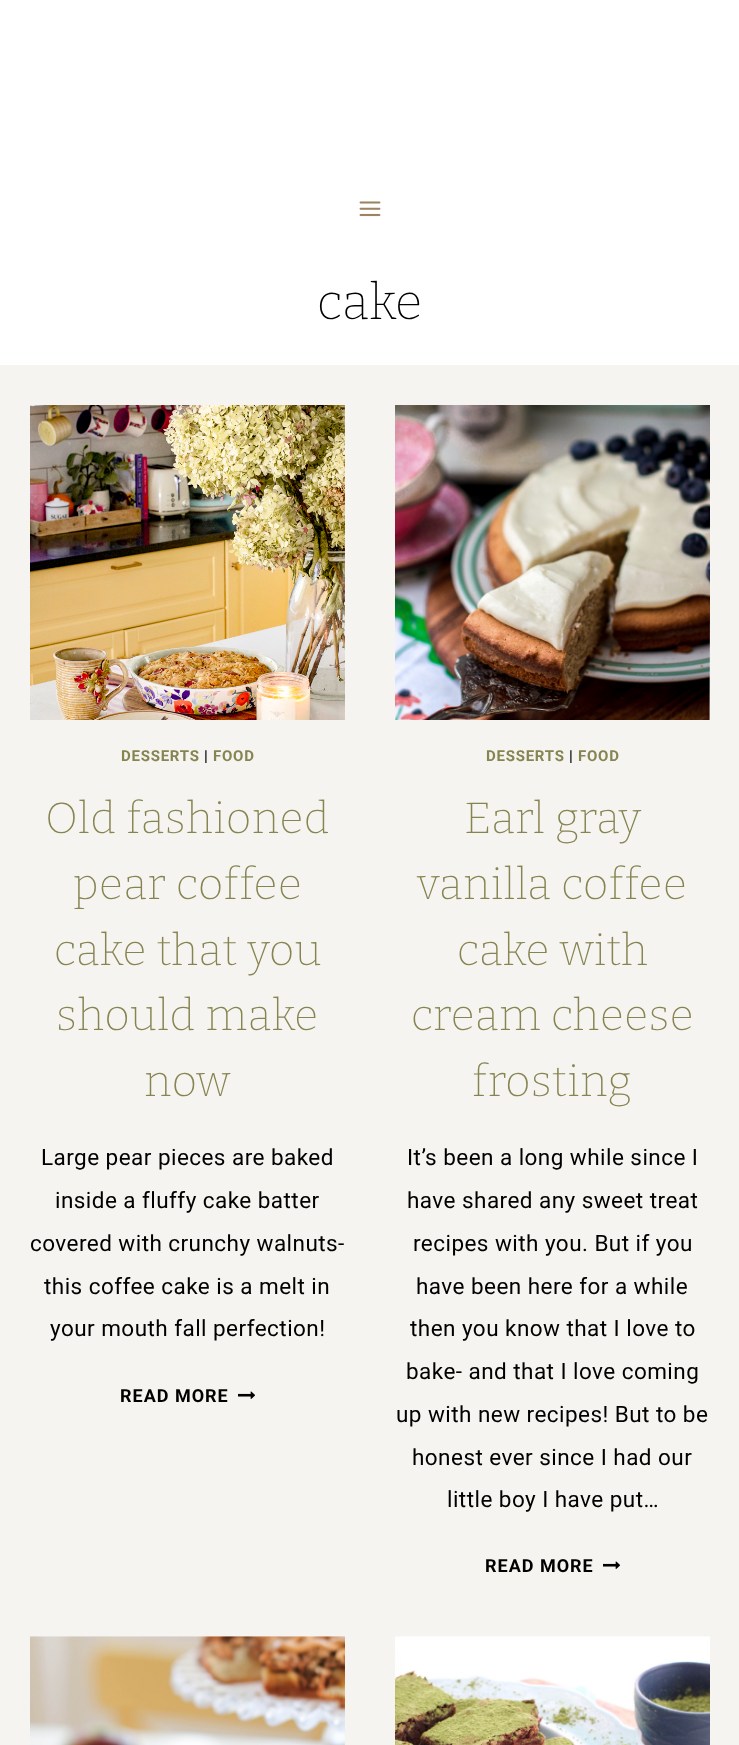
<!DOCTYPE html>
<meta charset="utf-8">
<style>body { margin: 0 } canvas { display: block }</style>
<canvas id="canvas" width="739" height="1745"></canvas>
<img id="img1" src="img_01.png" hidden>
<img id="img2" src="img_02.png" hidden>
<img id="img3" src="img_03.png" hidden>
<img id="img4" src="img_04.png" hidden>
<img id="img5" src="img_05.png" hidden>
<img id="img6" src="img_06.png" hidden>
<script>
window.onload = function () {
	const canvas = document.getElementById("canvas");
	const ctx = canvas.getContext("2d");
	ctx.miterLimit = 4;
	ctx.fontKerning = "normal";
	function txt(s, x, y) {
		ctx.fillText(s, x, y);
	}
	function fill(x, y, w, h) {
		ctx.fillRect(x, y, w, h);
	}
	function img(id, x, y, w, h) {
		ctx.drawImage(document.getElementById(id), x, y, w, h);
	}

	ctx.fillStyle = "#F6F4F0";
	fill(0, 0, 739, 1745);
	ctx.fillStyle = "#FFFFFF";
	fill(0, 0, 739, 365);
	img("img1", 359, 201, 22, 16);
	img("img2", 30, 405, 315, 315);
	img("img3", 238, 1391, 17, 8);
	img("img4", 395, 405, 315, 315);
	img("img3", 603, 1561, 17, 8);
	img("img5", 30, 1636, 315, 109);
	img("img6", 395, 1636, 315, 109);
	ctx.letterSpacing = "0.45px";
	ctx.font = "200 50px Bitter";
	ctx.fillStyle = "#000000";
	txt("cake", 317, 319);
	ctx.letterSpacing = "0.75px";
	ctx.font = "bold 15px Roboto";
	ctx.fillStyle = "#868451";
	txt("DESSERTS", 121, 761);
	ctx.font = "600 15px Roboto";
	ctx.fillStyle = "#000000";
	txt("|", 204, 761);
	ctx.font = "bold 15px Roboto";
	ctx.fillStyle = "#868451";
	txt("FOOD", 213, 761);
	ctx.letterSpacing = "0.45px";
	ctx.font = "200 43.75px Bitter";
	txt("Old fashioned", 45, 833);
	txt("pear coffee", 73, 899);
	txt("cake that you", 54, 965);
	txt("should make", 56, 1030);
	txt("now", 144, 1096);
	ctx.font = "22.5px Roboto";
	ctx.fillStyle = "#000000";
	txt("Large pear pieces are baked", 41, 1165);
	txt("inside a fluffy cake batter", 55, 1208);
	txt("covered with crunchy walnuts-", 30, 1251);
	txt("this coffee cake is a melt in", 44, 1294);
	txt("your mouth fall perfection!", 50, 1336);
	ctx.letterSpacing = "1px";
	ctx.font = "bold 18px Roboto";
	txt("READ MORE", 120, 1402);
	ctx.letterSpacing = "0.75px";
	ctx.font = "bold 15px Roboto";
	ctx.fillStyle = "#868451";
	txt("DESSERTS", 486, 761);
	ctx.font = "600 15px Roboto";
	ctx.fillStyle = "#000000";
	txt("|", 569, 761);
	ctx.font = "bold 15px Roboto";
	ctx.fillStyle = "#868451";
	txt("FOOD", 578, 761);
	ctx.letterSpacing = "0.45px";
	ctx.font = "200 43.75px Bitter";
	txt("Earl gray", 464, 833);
	txt("vanilla coffee", 417, 899);
	txt("cake with", 457, 965);
	txt("cream cheese", 411, 1030);
	txt("frosting", 472, 1096);
	ctx.font = "22.5px Roboto";
	ctx.fillStyle = "#000000";
	txt("It’s been a long while since I", 407, 1165);
	txt("have shared any sweet treat", 407, 1208);
	txt("recipes with you. But if you", 413, 1251);
	txt("have been here for a while", 416, 1294);
	txt("then you know that I love to", 410, 1336);
	txt("bake- and that I love coming", 406, 1379);
	txt("up with new recipes! But to be", 396, 1422);
	txt("honest ever since I had our", 412, 1465);
	txt("little boy I have put…", 447, 1507);
	ctx.letterSpacing = "1px";
	ctx.font = "bold 18px Roboto";
	txt("READ MORE", 485, 1572);
};
</script>
